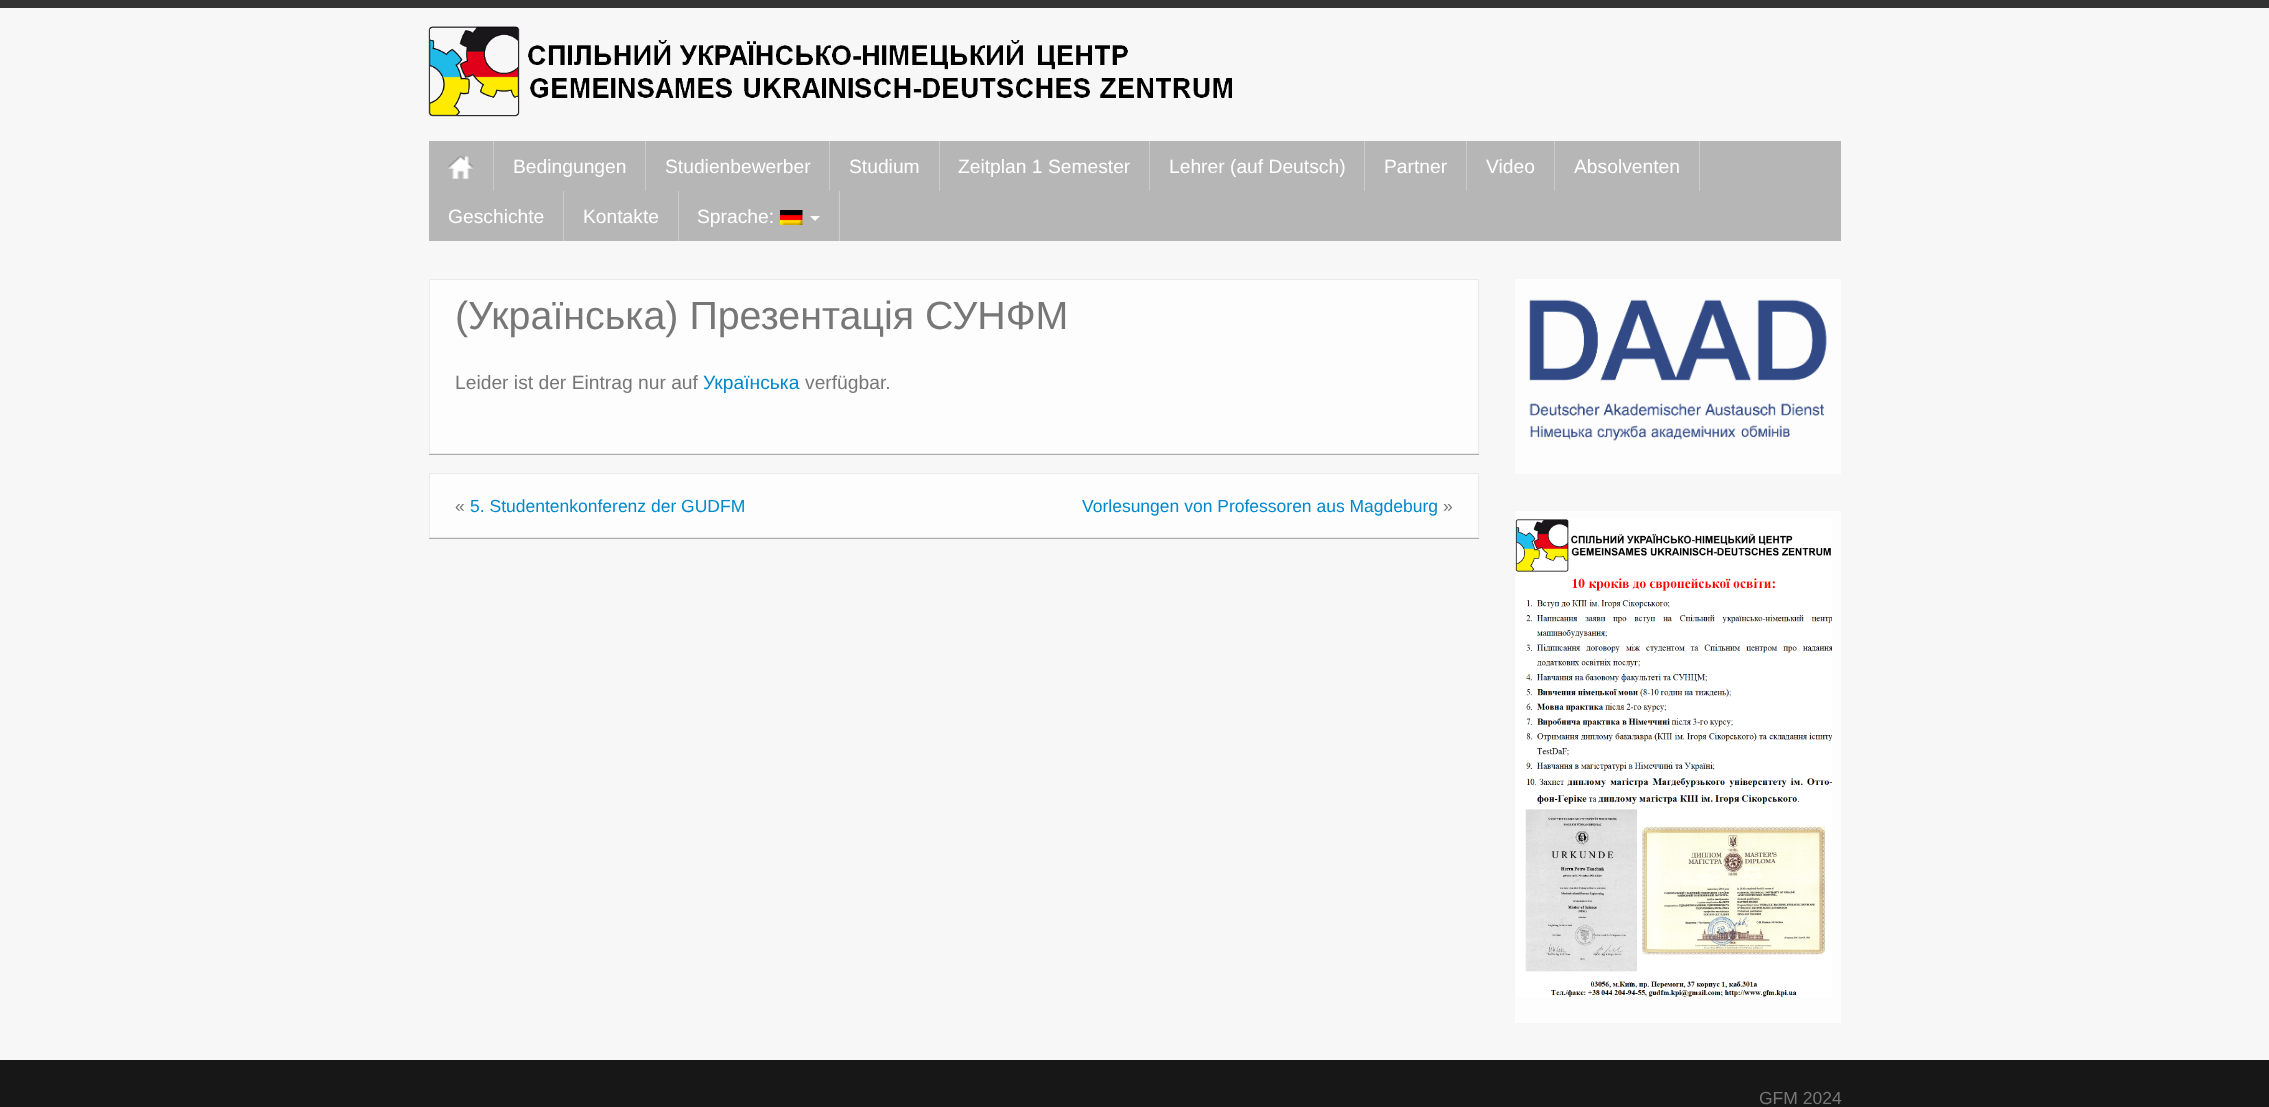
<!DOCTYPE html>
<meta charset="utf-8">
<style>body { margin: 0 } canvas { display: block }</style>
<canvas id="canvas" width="2269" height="1107"></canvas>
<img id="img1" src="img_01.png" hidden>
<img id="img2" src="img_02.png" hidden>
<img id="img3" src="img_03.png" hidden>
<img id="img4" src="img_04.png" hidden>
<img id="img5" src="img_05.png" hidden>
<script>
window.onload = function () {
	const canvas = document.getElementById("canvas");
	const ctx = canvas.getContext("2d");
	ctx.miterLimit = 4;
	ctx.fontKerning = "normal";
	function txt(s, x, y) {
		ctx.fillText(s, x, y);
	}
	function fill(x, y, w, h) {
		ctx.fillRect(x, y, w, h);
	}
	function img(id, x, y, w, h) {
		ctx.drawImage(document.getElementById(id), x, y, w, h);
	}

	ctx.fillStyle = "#F7F7F7";
	fill(0, 0, 2269, 1107);
	ctx.fillStyle = "#333333";
	fill(0, 0, 2269, 8);
	img("img1", 428, 26, 804, 91);
	ctx.fillStyle = "#B6B6B6";
	fill(429, 141, 1412, 100);
	ctx.fillStyle = "#CCCCCC";
	fill(493, 141, 1, 50);
	img("img2", 447, 156, 27, 23);
	fill(645, 141, 1, 50);
	fill(829, 141, 1, 50);
	fill(939, 141, 1, 50);
	fill(1149, 141, 1, 50);
	fill(1364, 141, 1, 50);
	fill(1466, 141, 1, 50);
	fill(1554, 141, 1, 50);
	fill(1699, 141, 1, 50);
	fill(563, 191, 1, 50);
	fill(678, 191, 1, 50);
	fill(839, 191, 1, 50);
	img("img3", 780, 210, 23, 15);
	ctx.fillStyle = "#FFFFFF";
	ctx.beginPath();
	ctx.moveTo(810, 216);
	ctx.lineTo(820, 216);
	ctx.lineTo(815, 221);
	ctx.closePath();
	ctx.fill();
	ctx.fillStyle = "#ADADAD";
	ctx.beginPath();
	ctx.moveTo(429, 454);
	ctx.lineTo(429, 455);
	ctx.lineTo(1479, 455);
	ctx.lineTo(1479, 280);
	ctx.lineTo(1479, 454);
	ctx.closePath();
	ctx.fill();
	ctx.fillStyle = "#FDFDFD";
	ctx.beginPath();
	ctx.rect(429.5, 279.5, 1049, 174);
	ctx.fill();
	ctx.strokeStyle = "#EAEAEA";
	ctx.stroke();
	ctx.fillStyle = "#ADADAD";
	ctx.beginPath();
	ctx.moveTo(429, 538);
	ctx.lineTo(429, 539);
	ctx.lineTo(1479, 539);
	ctx.lineTo(1479, 474);
	ctx.lineTo(1479, 538);
	ctx.closePath();
	ctx.fill();
	ctx.fillStyle = "#FDFDFD";
	ctx.beginPath();
	ctx.rect(429.5, 473.5, 1049, 64);
	ctx.fill();
	ctx.stroke();
	fill(1515, 279, 326, 195);
	img("img4", 1529, 299, 298, 142);
	fill(1515, 511, 326, 512);
	img("img5", 1515, 519, 317, 478);
	ctx.fillStyle = "#171717";
	fill(0, 1060, 2269, 47);
	ctx.font = "19.25px Liberation Sans";
	ctx.fillStyle = "#FFFFFF";
	txt("Bedingungen", 513, 173);
	txt("Studienbewerber", 665, 173);
	txt("Studium", 849, 173);
	txt("Zeitplan 1 Semester", 958, 173);
	txt("Lehrer (auf Deutsch)", 1169, 173);
	txt("Partner", 1384, 173);
	txt("Video", 1486, 173);
	txt("Absolventen", 1574, 173);
	txt("Geschichte", 448, 223);
	txt("Kontakte", 583, 223);
	txt("Sprache:", 697, 223);
	ctx.font = "39.4px Liberation Sans";
	ctx.fillStyle = "#777777";
	txt("(Українська) Презентація СУНФМ", 455, 329);
	ctx.font = "19.25px Liberation Sans";
	txt("Leider ist der Eintrag nur auf", 455, 389);
	ctx.fillStyle = "#0088CC";
	txt("Українська", 703, 389);
	ctx.fillStyle = "#777777";
	txt("verfügbar.", 805, 389);
	ctx.font = "17.5px Liberation Sans";
	txt("«", 455, 512);
	ctx.fillStyle = "#0088CC";
	txt("5. Studentenkonferenz der GUDFM", 470, 512);
	txt("Vorlesungen von Professoren aus Magdeburg", 1082, 512);
	ctx.fillStyle = "#777777";
	txt("»", 1443, 512);
	txt("GFM 2024", 1759, 1104);
};
</script>
